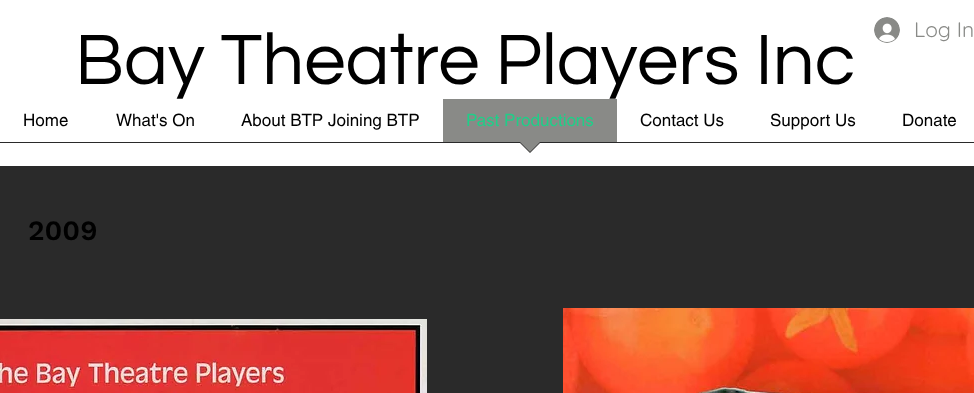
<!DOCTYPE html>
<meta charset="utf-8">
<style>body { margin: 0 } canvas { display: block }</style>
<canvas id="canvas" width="974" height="393"></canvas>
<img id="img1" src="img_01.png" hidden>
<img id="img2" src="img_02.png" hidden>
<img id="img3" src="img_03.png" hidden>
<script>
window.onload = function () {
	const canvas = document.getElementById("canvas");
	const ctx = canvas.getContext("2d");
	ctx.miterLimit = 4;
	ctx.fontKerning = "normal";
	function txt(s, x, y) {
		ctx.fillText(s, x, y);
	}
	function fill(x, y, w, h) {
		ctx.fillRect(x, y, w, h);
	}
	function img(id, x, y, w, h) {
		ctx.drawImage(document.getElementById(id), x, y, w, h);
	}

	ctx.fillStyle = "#2A2A2A";
	fill(0, 0, 974, 393);
	ctx.fillStyle = "#FFFFFF";
	fill(0, 0, 974, 166);
	img("img1", 874, 17, 26, 26);
	ctx.fillStyle = "#898A87";
	fill(443, 99, 174, 43);
	ctx.fillStyle = "#2A2A2A";
	fill(0, 142, 974, 1);
	ctx.beginPath();
	ctx.moveTo(519, 142);
	ctx.lineTo(541, 142);
	ctx.lineTo(530, 153);
	ctx.closePath();
	ctx.fill();
	ctx.fillStyle = "#898A87";
	ctx.beginPath();
	ctx.moveTo(520, 142);
	ctx.lineTo(540, 142);
	ctx.lineTo(530, 152);
	ctx.closePath();
	ctx.fill();
	img("img2", 0, 319, 427, 74);
	img("img3", 563, 308, 411, 85);
	ctx.font = "74px Questrial";
	ctx.fillStyle = "#000000";
	txt("Bay Theatre Players Inc", 75, 84);
	ctx.font = "21px Quicksand";
	ctx.fillStyle = "#898A87";
	txt("Log In", 914, 37);
	ctx.font = "17px helvetica";
	ctx.fillStyle = "#000000";
	txt("Home", 23, 126);
	txt("What's On", 116, 126);
	txt("About BTP Joining BTP", 241, 126);
	ctx.fillStyle = "#20CE88";
	txt("Past Productions", 466, 126);
	ctx.fillStyle = "#000000";
	txt("Contact Us", 640, 126);
	txt("Support Us", 770, 126);
	txt("Donate", 902, 126);
	ctx.font = "600 28px Work Sans";
	txt("2009", 28, 240);
};
</script>
